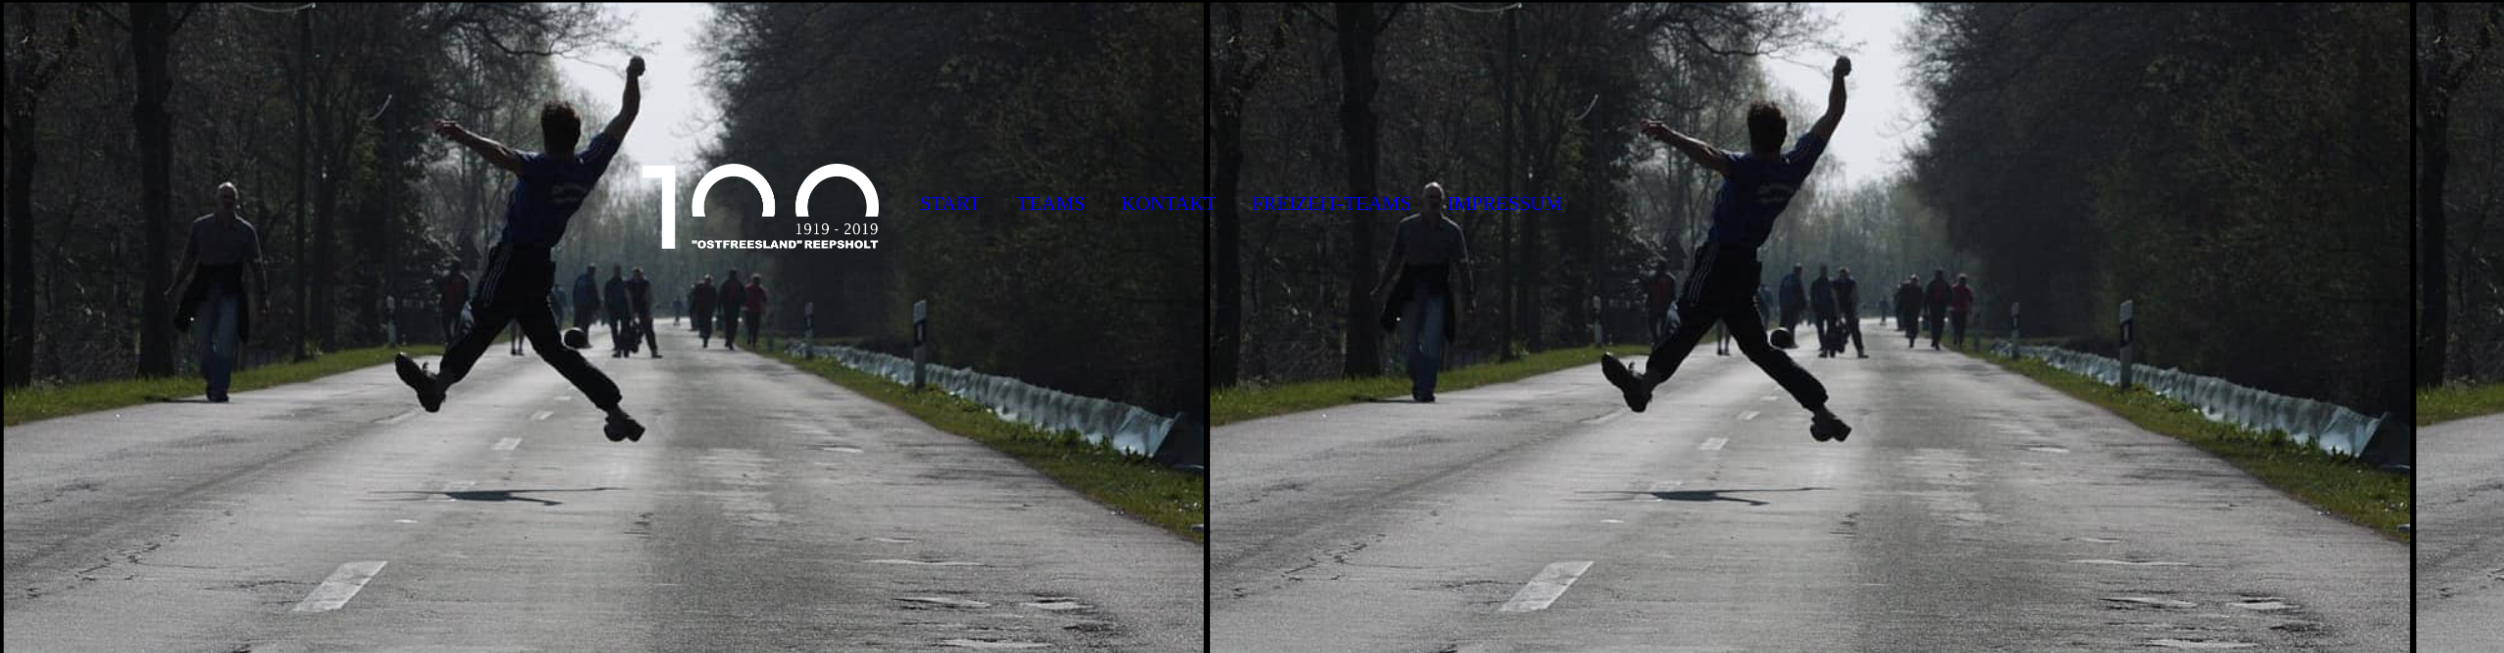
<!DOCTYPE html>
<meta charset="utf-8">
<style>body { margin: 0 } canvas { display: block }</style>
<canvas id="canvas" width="2504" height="653"></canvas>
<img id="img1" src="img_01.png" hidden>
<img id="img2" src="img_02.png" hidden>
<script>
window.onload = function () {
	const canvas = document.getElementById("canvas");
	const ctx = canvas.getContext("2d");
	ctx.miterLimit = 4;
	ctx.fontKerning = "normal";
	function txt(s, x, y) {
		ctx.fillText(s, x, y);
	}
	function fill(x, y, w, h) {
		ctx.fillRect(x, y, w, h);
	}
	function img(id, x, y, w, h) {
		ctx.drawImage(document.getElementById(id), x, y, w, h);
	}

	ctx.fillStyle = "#FFFFFF";
	fill(0, 0, 2504, 653);
	img("img1", 0, 0, 2504, 653);
	img("img2", 642, 163, 237, 86);
	ctx.font = "20px Liberation Serif";
	ctx.fillStyle = "#0000EE";
	txt("START", 920, 210);
	txt("TEAMS", 1017, 210);
	txt("KONTAKT", 1121, 210);
	txt("FREIZEIT-TEAMS", 1252, 210);
	txt("IMPRESSUM", 1447, 210);
};
</script>
